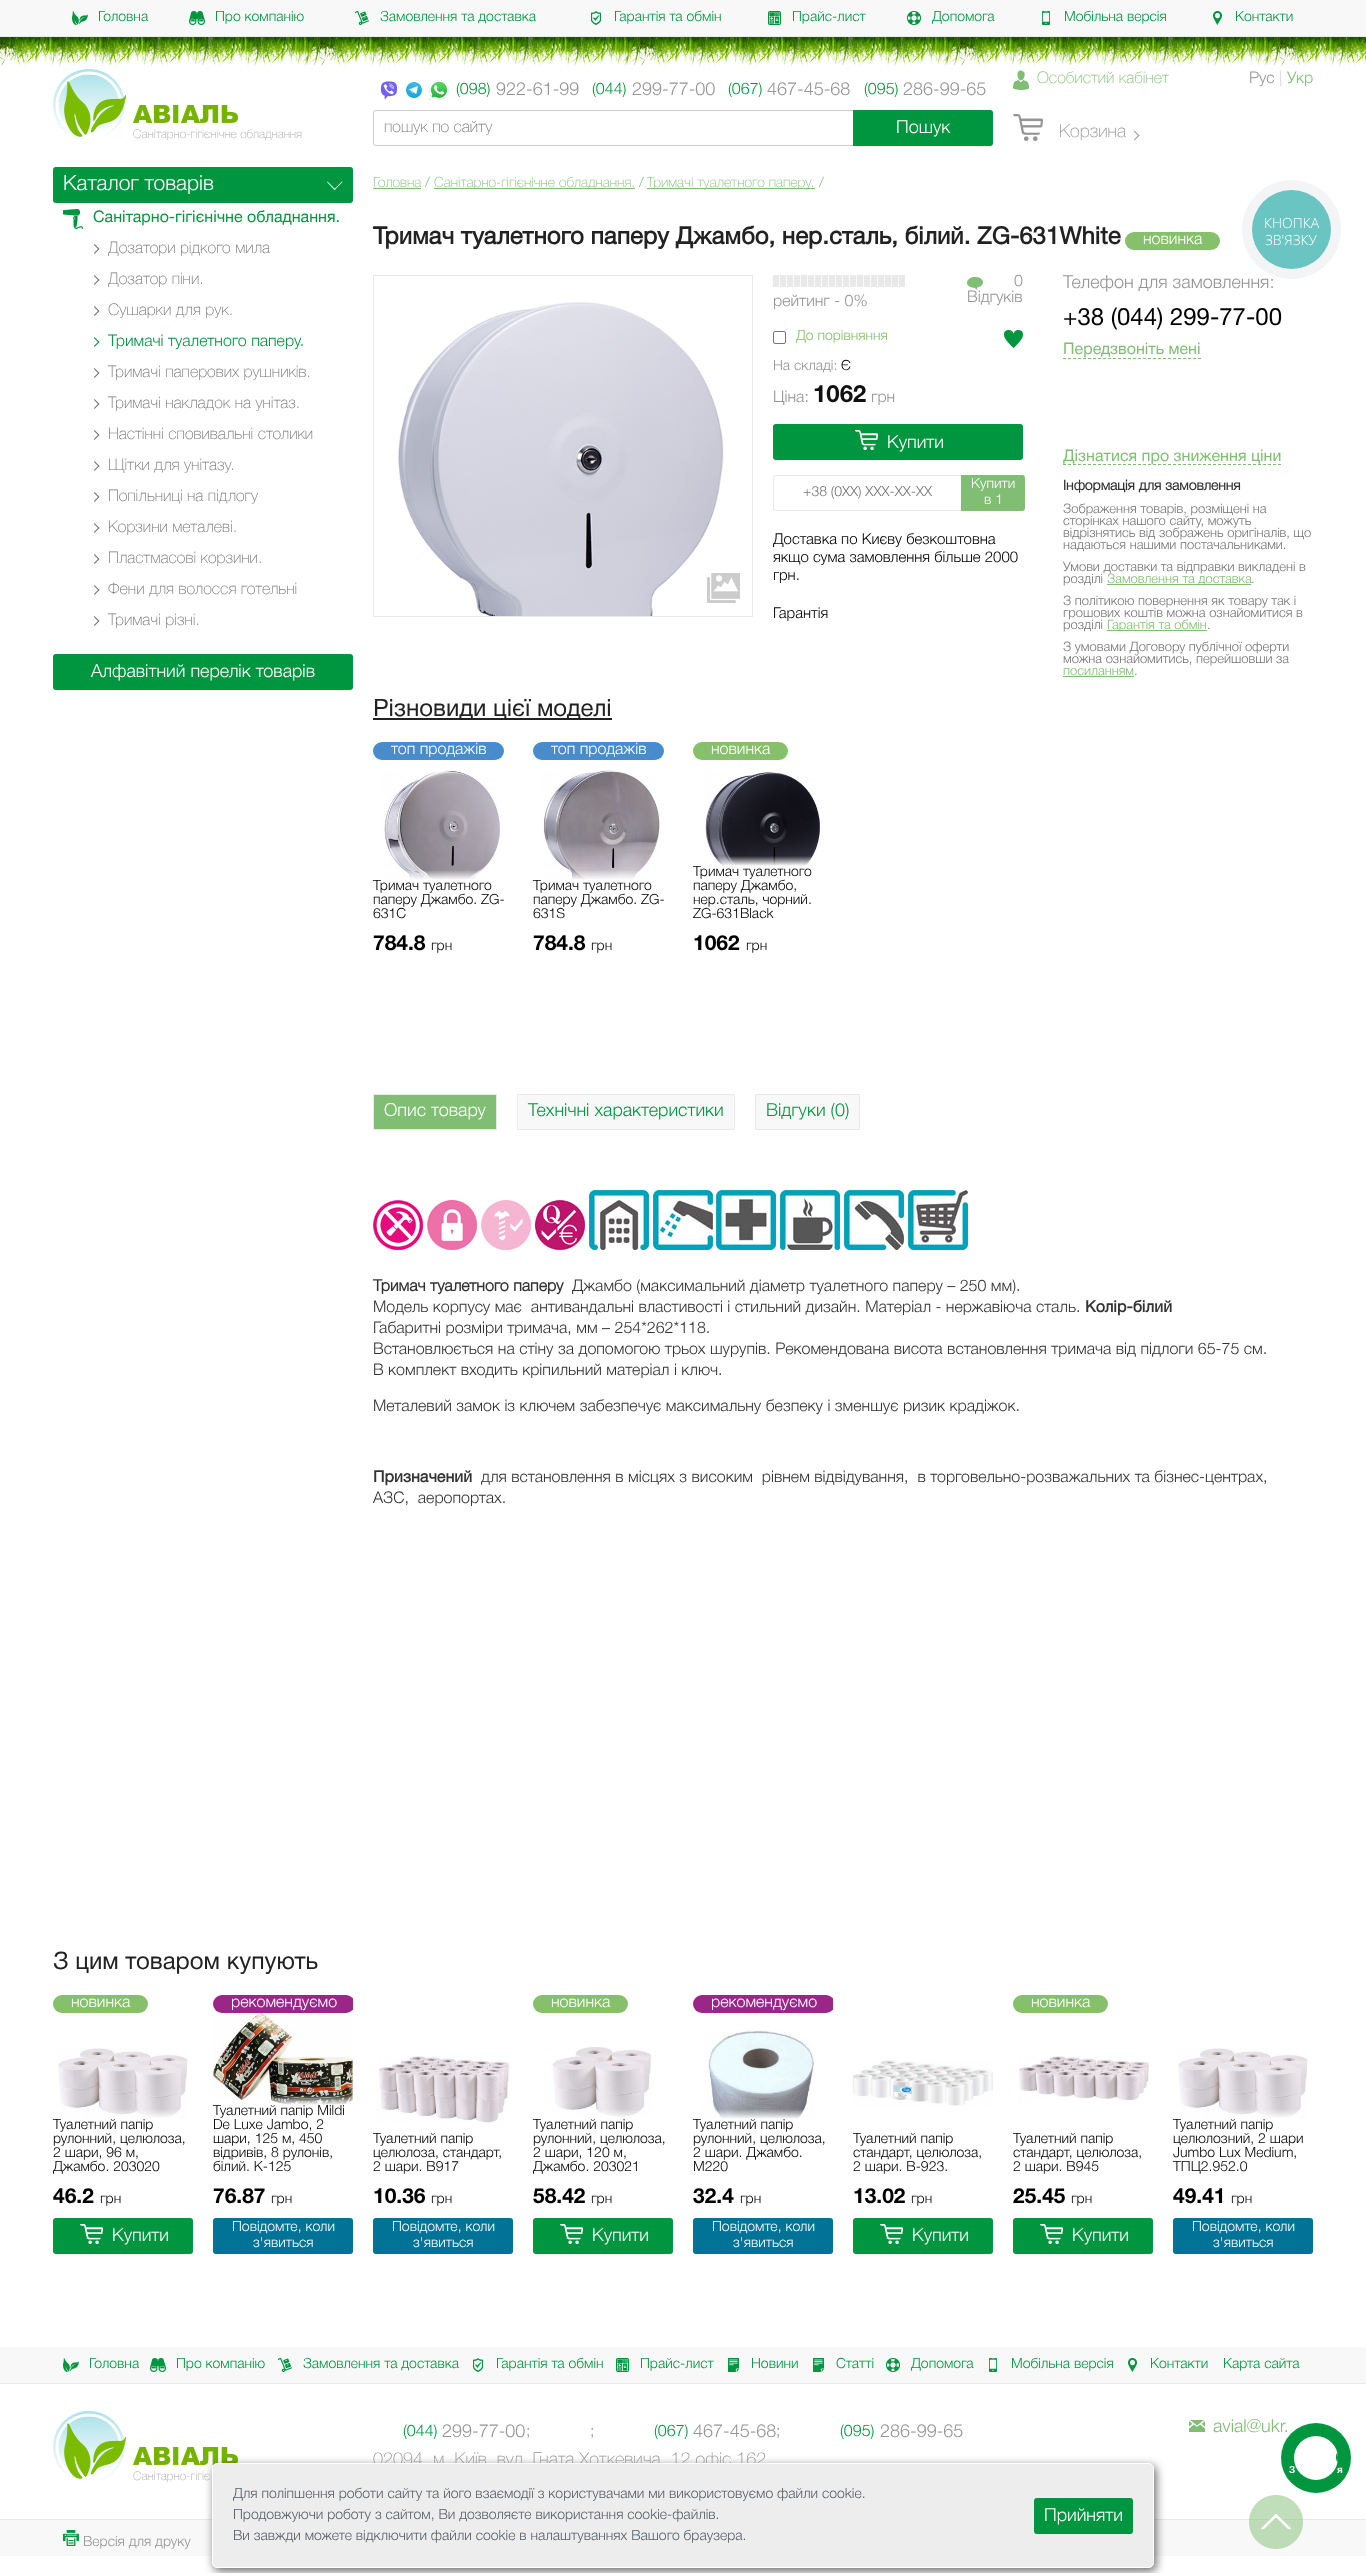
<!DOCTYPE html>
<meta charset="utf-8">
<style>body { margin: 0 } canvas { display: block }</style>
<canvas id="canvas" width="1366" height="2573"></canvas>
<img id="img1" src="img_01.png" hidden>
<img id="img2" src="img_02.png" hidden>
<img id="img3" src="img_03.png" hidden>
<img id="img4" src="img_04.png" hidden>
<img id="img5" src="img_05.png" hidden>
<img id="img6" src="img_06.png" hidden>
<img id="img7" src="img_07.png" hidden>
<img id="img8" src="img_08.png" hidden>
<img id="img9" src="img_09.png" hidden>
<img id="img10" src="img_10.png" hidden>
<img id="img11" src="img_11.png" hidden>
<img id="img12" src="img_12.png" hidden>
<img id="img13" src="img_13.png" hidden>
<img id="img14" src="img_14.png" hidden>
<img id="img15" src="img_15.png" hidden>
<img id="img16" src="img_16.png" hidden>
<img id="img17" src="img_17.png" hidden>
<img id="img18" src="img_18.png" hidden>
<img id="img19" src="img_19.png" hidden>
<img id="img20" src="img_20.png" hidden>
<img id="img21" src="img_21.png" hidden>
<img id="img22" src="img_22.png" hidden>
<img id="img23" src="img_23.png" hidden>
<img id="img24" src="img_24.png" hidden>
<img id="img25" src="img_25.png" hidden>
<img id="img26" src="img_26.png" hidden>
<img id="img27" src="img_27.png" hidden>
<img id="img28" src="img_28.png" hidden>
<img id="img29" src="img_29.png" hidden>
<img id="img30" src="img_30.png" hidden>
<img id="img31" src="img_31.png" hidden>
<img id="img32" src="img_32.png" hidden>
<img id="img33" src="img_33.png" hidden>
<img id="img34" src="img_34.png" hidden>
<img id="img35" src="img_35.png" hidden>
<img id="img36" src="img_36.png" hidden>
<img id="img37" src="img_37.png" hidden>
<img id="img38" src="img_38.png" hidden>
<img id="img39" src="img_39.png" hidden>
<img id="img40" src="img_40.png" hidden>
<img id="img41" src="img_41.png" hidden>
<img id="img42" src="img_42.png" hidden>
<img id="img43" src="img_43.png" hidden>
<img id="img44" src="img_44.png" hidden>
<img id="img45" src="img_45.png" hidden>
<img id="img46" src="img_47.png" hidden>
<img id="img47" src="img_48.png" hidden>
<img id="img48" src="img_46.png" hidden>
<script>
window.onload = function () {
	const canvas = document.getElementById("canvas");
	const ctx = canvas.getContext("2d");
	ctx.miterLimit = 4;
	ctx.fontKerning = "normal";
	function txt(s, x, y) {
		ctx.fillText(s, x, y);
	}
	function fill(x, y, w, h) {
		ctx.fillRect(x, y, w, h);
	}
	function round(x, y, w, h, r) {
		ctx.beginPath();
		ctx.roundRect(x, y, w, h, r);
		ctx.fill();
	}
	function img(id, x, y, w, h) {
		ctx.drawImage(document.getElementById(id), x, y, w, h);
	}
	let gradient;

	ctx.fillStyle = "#FFFFFF";
	fill(0, 0, 1366, 2573);
	ctx.fillStyle = "#F8F8F8";
	fill(0, 0, 1366, 36);
	ctx.fillStyle = "#E9E9E9";
	fill(0, 36, 1366, 1);
	img("img1", 72, 11, 16, 14);
	img("img2", 189, 11, 16, 14);
	img("img3", 355, 11, 14, 14);
	img("img4", 591, 11, 10, 14);
	img("img5", 768, 11, 13, 14);
	img("img6", 907, 11, 14, 14);
	img("img7", 1042, 11, 8, 14);
	img("img8", 1213, 11, 9, 14);
	img("img9", 0, 37, 1366, 32);
	img("img10", 53, 69, 185, 68);
	img("img11", 380, 81, 18, 19);
	img("img12", 406, 82, 16, 16);
	img("img13", 429, 80, 20, 20);
	ctx.beginPath();
	ctx.roundRect(373.5, 110.5, 619, 35, 2.5);
	ctx.strokeStyle = "#CBCBCB";
	ctx.stroke();
	ctx.fillStyle = "#009640";
	ctx.beginPath();
	ctx.roundRect(853, 110, 140, 36, [0, 3, 3, 0]);
	ctx.fill();
	img("img14", 1013, 70, 16, 20);
	img("img15", 1013, 114, 30, 27);
	ctx.fillStyle = "#9B9B9B";
	ctx.beginPath();
	ctx.moveTo(1134.5, 130.5);
	ctx.lineTo(1139.5, 135.5);
	ctx.lineTo(1138.5, 136);
	ctx.lineTo(1134, 131.5);
	ctx.closePath();
	ctx.fill();
	ctx.beginPath();
	ctx.moveTo(1138.5, 135);
	ctx.lineTo(1139.5, 135.5);
	ctx.lineTo(1134.5, 140.5);
	ctx.lineTo(1134, 139.5);
	ctx.closePath();
	ctx.fill();
	ctx.fillStyle = "#009640";
	round(53, 167, 300, 36, 3);
	ctx.fillStyle = "#FFFFFF";
	ctx.beginPath();
	ctx.moveTo(342.5, 182);
	ctx.lineTo(334.5, 190);
	ctx.lineTo(334, 189.5);
	ctx.lineTo(342, 181.5);
	ctx.closePath();
	ctx.fill();
	ctx.beginPath();
	ctx.moveTo(335.5, 189.5);
	ctx.lineTo(334.5, 190);
	ctx.lineTo(327, 182);
	ctx.lineTo(327.5, 181.5);
	ctx.closePath();
	ctx.fill();
	img("img16", 63, 209, 20, 20);
	ctx.fillStyle = "#727272";
	ctx.beginPath();
	ctx.moveTo(94.5, 244);
	ctx.lineTo(99.5, 249);
	ctx.lineTo(98.5, 249.5);
	ctx.lineTo(94, 245);
	ctx.closePath();
	ctx.fill();
	ctx.beginPath();
	ctx.moveTo(98.5, 248.5);
	ctx.lineTo(99.5, 249);
	ctx.lineTo(94.5, 254);
	ctx.lineTo(94, 253);
	ctx.closePath();
	ctx.fill();
	ctx.beginPath();
	ctx.moveTo(94.5, 275);
	ctx.lineTo(99.5, 280);
	ctx.lineTo(98.5, 280.5);
	ctx.lineTo(94, 276);
	ctx.closePath();
	ctx.fill();
	ctx.beginPath();
	ctx.moveTo(98.5, 279.5);
	ctx.lineTo(99.5, 280);
	ctx.lineTo(94.5, 285);
	ctx.lineTo(94, 284);
	ctx.closePath();
	ctx.fill();
	ctx.beginPath();
	ctx.moveTo(94.5, 306);
	ctx.lineTo(99.5, 311);
	ctx.lineTo(98.5, 311.5);
	ctx.lineTo(94, 307);
	ctx.closePath();
	ctx.fill();
	ctx.beginPath();
	ctx.moveTo(98.5, 310.5);
	ctx.lineTo(99.5, 311);
	ctx.lineTo(94.5, 316);
	ctx.lineTo(94, 315);
	ctx.closePath();
	ctx.fill();
	ctx.fillStyle = "#009640";
	ctx.beginPath();
	ctx.moveTo(94.5, 337);
	ctx.lineTo(99.5, 342);
	ctx.lineTo(98.5, 342.5);
	ctx.lineTo(94, 338);
	ctx.closePath();
	ctx.fill();
	ctx.beginPath();
	ctx.moveTo(98.5, 341.5);
	ctx.lineTo(99.5, 342);
	ctx.lineTo(94.5, 347);
	ctx.lineTo(94, 346);
	ctx.closePath();
	ctx.fill();
	ctx.fillStyle = "#727272";
	ctx.beginPath();
	ctx.moveTo(94.5, 368);
	ctx.lineTo(99.5, 373);
	ctx.lineTo(98.5, 373.5);
	ctx.lineTo(94, 369);
	ctx.closePath();
	ctx.fill();
	ctx.beginPath();
	ctx.moveTo(98.5, 372.5);
	ctx.lineTo(99.5, 373);
	ctx.lineTo(94.5, 378);
	ctx.lineTo(94, 377);
	ctx.closePath();
	ctx.fill();
	ctx.beginPath();
	ctx.moveTo(94.5, 399);
	ctx.lineTo(99.5, 404);
	ctx.lineTo(98.5, 404.5);
	ctx.lineTo(94, 400);
	ctx.closePath();
	ctx.fill();
	ctx.beginPath();
	ctx.moveTo(98.5, 403.5);
	ctx.lineTo(99.5, 404);
	ctx.lineTo(94.5, 409);
	ctx.lineTo(94, 408);
	ctx.closePath();
	ctx.fill();
	ctx.beginPath();
	ctx.moveTo(94.5, 430);
	ctx.lineTo(99.5, 435);
	ctx.lineTo(98.5, 435.5);
	ctx.lineTo(94, 431);
	ctx.closePath();
	ctx.fill();
	ctx.beginPath();
	ctx.moveTo(98.5, 434.5);
	ctx.lineTo(99.5, 435);
	ctx.lineTo(94.5, 440);
	ctx.lineTo(94, 439);
	ctx.closePath();
	ctx.fill();
	ctx.beginPath();
	ctx.moveTo(94.5, 461);
	ctx.lineTo(99.5, 466);
	ctx.lineTo(98.5, 466.5);
	ctx.lineTo(94, 462);
	ctx.closePath();
	ctx.fill();
	ctx.beginPath();
	ctx.moveTo(98.5, 465.5);
	ctx.lineTo(99.5, 466);
	ctx.lineTo(94.5, 471);
	ctx.lineTo(94, 470);
	ctx.closePath();
	ctx.fill();
	ctx.beginPath();
	ctx.moveTo(94.5, 492);
	ctx.lineTo(99.5, 497);
	ctx.lineTo(98.5, 497.5);
	ctx.lineTo(94, 493);
	ctx.closePath();
	ctx.fill();
	ctx.beginPath();
	ctx.moveTo(98.5, 496.5);
	ctx.lineTo(99.5, 497);
	ctx.lineTo(94.5, 502);
	ctx.lineTo(94, 501);
	ctx.closePath();
	ctx.fill();
	ctx.beginPath();
	ctx.moveTo(94.5, 523);
	ctx.lineTo(99.5, 528);
	ctx.lineTo(98.5, 528.5);
	ctx.lineTo(94, 524);
	ctx.closePath();
	ctx.fill();
	ctx.beginPath();
	ctx.moveTo(98.5, 527.5);
	ctx.lineTo(99.5, 528);
	ctx.lineTo(94.5, 533);
	ctx.lineTo(94, 532);
	ctx.closePath();
	ctx.fill();
	ctx.beginPath();
	ctx.moveTo(94.5, 554);
	ctx.lineTo(99.5, 559);
	ctx.lineTo(98.5, 559.5);
	ctx.lineTo(94, 555);
	ctx.closePath();
	ctx.fill();
	ctx.beginPath();
	ctx.moveTo(98.5, 558.5);
	ctx.lineTo(99.5, 559);
	ctx.lineTo(94.5, 564);
	ctx.lineTo(94, 563);
	ctx.closePath();
	ctx.fill();
	ctx.beginPath();
	ctx.moveTo(94.5, 585);
	ctx.lineTo(99.5, 590);
	ctx.lineTo(98.5, 590.5);
	ctx.lineTo(94, 586);
	ctx.closePath();
	ctx.fill();
	ctx.beginPath();
	ctx.moveTo(98.5, 589.5);
	ctx.lineTo(99.5, 590);
	ctx.lineTo(94.5, 595);
	ctx.lineTo(94, 594);
	ctx.closePath();
	ctx.fill();
	ctx.beginPath();
	ctx.moveTo(94.5, 616);
	ctx.lineTo(99.5, 621);
	ctx.lineTo(98.5, 621.5);
	ctx.lineTo(94, 617);
	ctx.closePath();
	ctx.fill();
	ctx.beginPath();
	ctx.moveTo(98.5, 620.5);
	ctx.lineTo(99.5, 621);
	ctx.lineTo(94.5, 626);
	ctx.lineTo(94, 625);
	ctx.closePath();
	ctx.fill();
	ctx.fillStyle = "#009640";
	round(53, 654, 300, 36, 3);
	ctx.fillStyle = "#7FBE73";
	fill(373, 188, 48, 1);
	fill(434, 188, 201, 1);
	fill(647, 188, 168, 1);
	ctx.fillStyle = "#86C06A";
	round(1125, 232, 95, 18, 9);
	ctx.strokeStyle = "#E9E9E9";
	ctx.strokeRect(373.5, 275.5, 379, 341);
	img("img17", 398, 302, 326, 314);
	img("img18", 707, 573, 33, 30);
	img("img19", 773, 275, 132, 12);
	img("img20", 967, 277, 16, 13);
	ctx.beginPath();
	ctx.roundRect(773.5, 331.5, 12, 12, 1.5);
	ctx.strokeStyle = "#767676";
	ctx.stroke();
	img("img21", 1004, 330, 19, 18);
	ctx.fillStyle = "#009640";
	round(773, 424, 250, 36, 3);
	img("img22", 855, 430, 23, 20);
	ctx.fillStyle = "#E9E9E9";
	ctx.beginPath();
	ctx.moveTo(776, 475);
	ctx.lineTo(961, 475);
	ctx.lineTo(961, 511);
	ctx.lineTo(776, 511);
	ctx.bezierCurveTo(774, 511, 773, 510, 773, 508);
	ctx.lineTo(773, 478);
	ctx.bezierCurveTo(773, 476, 774, 475, 776, 475);
	ctx.closePath();
	ctx.moveTo(776, 476);
	ctx.lineTo(961, 476);
	ctx.lineTo(961, 510);
	ctx.lineTo(776, 510);
	ctx.bezierCurveTo(775, 510, 774, 509, 774, 508);
	ctx.lineTo(774, 478);
	ctx.bezierCurveTo(774, 477, 775, 476, 776, 476);
	ctx.closePath();
	ctx.fill("evenodd");
	ctx.fillStyle = "#7FBE73";
	ctx.beginPath();
	ctx.roundRect(961, 475, 64, 36, [0, 3, 3, 0]);
	ctx.fill();
	ctx.beginPath();
	ctx.moveTo(1063, 358.5);
	ctx.lineTo(1201, 358.5);
	ctx.strokeStyle = "#7FBE73";
	ctx.setLineDash([3, 2]);
	ctx.stroke();
	ctx.beginPath();
	ctx.moveTo(1063, 464.5);
	ctx.lineTo(1281, 464.5);
	ctx.stroke();
	fill(1107, 584, 144, 1);
	fill(1107, 630, 100, 1);
	fill(1063, 676, 71, 1);
	ctx.fillStyle = "#222222";
	fill(373, 718, 239, 2);
	ctx.fillStyle = "#488CCB";
	round(373, 742, 131, 18, 9);
	img("img23", 382, 770, 120, 110);
	gradient = ctx.createLinearGradient(443, 870, 443, 880);
	gradient.addColorStop(0, "rgba(255, 255, 255, 0)");
	gradient.addColorStop(1, "#FFFFFF");
	ctx.fillStyle = gradient;
	fill(405, 870, 76, 10);
	ctx.fillStyle = "#488CCB";
	round(533, 742, 131, 18, 9);
	img("img24", 542, 770, 120, 110);
	gradient = ctx.createLinearGradient(603, 870, 603, 880);
	gradient.addColorStop(0, "rgba(255, 255, 255, 0)");
	gradient.addColorStop(1, "#FFFFFF");
	ctx.fillStyle = gradient;
	fill(570, 870, 69, 10);
	ctx.fillStyle = "#86C06A";
	round(693, 742, 95, 18, 9);
	img("img25", 705, 770, 117, 96);
	gradient = ctx.createLinearGradient(763, 856, 763, 866);
	gradient.addColorStop(0, "rgba(255, 255, 255, 0)");
	gradient.addColorStop(1, "#FFFFFF");
	ctx.fillStyle = gradient;
	fill(714, 856, 99, 10);
	ctx.fillStyle = "#7FBE73";
	ctx.beginPath();
	ctx.rect(373.5, 1094.5, 123, 35);
	ctx.fill();
	ctx.strokeStyle = "#E9E9E9";
	ctx.setLineDash([]);
	ctx.stroke();
	ctx.fillStyle = "#F8F8F8";
	ctx.beginPath();
	ctx.rect(517.5, 1094.5, 217, 35);
	ctx.fill();
	ctx.stroke();
	ctx.beginPath();
	ctx.rect(755.5, 1094.5, 104, 35);
	ctx.fill();
	ctx.stroke();
	img("img26", 373, 1200, 50, 50);
	img("img27", 427, 1200, 50, 50);
	img("img28", 481, 1200, 50, 50);
	img("img29", 535, 1200, 50, 50);
	img("img30", 589, 1190, 60, 60);
	img("img31", 653, 1190, 60, 60);
	img("img32", 716, 1190, 60, 60);
	img("img33", 780, 1190, 60, 60);
	img("img34", 844, 1190, 60, 60);
	img("img35", 908, 1190, 60, 60);
	ctx.fillStyle = "#86C06A";
	round(53, 1995, 95, 18, 9);
	img("img36", 58, 2048, 130, 71);
	gradient = ctx.createLinearGradient(123, 2109, 123, 2119);
	gradient.addColorStop(0, "rgba(255, 255, 255, 0)");
	gradient.addColorStop(1, "#FFFFFF");
	ctx.fillStyle = gradient;
	fill(104, 2109, 75, 10);
	ctx.fillStyle = "#009640";
	round(53, 2218, 140, 36, 3);
	img("img22", 80, 2224, 23, 20);
	ctx.save();
	ctx.beginPath();
	ctx.rect(213, 1995, 140, 300);
	ctx.clip();
	ctx.fillStyle = "#9A2787";
	round(213, 1995, 142, 18, 9);
	ctx.restore();
	img("img37", 213, 2013, 140, 92);
	ctx.fillStyle = "#007396";
	round(213, 2218, 140, 36, 3);
	img("img38", 378, 2056, 132, 67);
	round(373, 2218, 140, 36, 3);
	ctx.fillStyle = "#86C06A";
	round(533, 1995, 95, 18, 9);
	img("img39", 552, 2047, 100, 70);
	gradient = ctx.createLinearGradient(603, 2109, 603, 2119);
	gradient.addColorStop(0, "rgba(255, 255, 255, 0)");
	gradient.addColorStop(1, "#FFFFFF");
	ctx.fillStyle = gradient;
	fill(598, 2109, 42, 8);
	ctx.fillStyle = "#009640";
	round(533, 2218, 140, 36, 3);
	img("img22", 560, 2224, 23, 20);
	ctx.save();
	ctx.beginPath();
	ctx.rect(693, 1995, 140, 300);
	ctx.clip();
	ctx.fillStyle = "#9A2787";
	round(693, 1995, 142, 18, 9);
	ctx.restore();
	img("img40", 702, 2030, 112, 89);
	gradient = ctx.createLinearGradient(763, 2109, 763, 2119);
	gradient.addColorStop(0, "rgba(255, 255, 255, 0)");
	gradient.addColorStop(1, "#FFFFFF");
	ctx.fillStyle = gradient;
	fill(716, 2109, 89, 10);
	ctx.fillStyle = "#007396";
	round(693, 2218, 140, 36, 3);
	img("img41", 853, 2060, 140, 46);
	ctx.fillStyle = "#009640";
	round(853, 2218, 140, 36, 3);
	img("img22", 880, 2224, 23, 20);
	ctx.fillStyle = "#86C06A";
	round(1013, 1995, 95, 18, 9);
	img("img42", 1018, 2056, 131, 47);
	ctx.fillStyle = "#009640";
	round(1013, 2218, 140, 36, 3);
	img("img22", 1040, 2224, 23, 20);
	img("img43", 1178, 2048, 130, 71);
	gradient = ctx.createLinearGradient(1243, 2109, 1243, 2119);
	gradient.addColorStop(0, "rgba(255, 255, 255, 0)");
	gradient.addColorStop(1, "#FFFFFF");
	ctx.fillStyle = gradient;
	fill(1224, 2109, 75, 10);
	ctx.fillStyle = "#007396";
	round(1173, 2218, 140, 36, 3);
	ctx.fillStyle = "#F8F8F8";
	fill(0, 2347, 1366, 36);
	ctx.fillStyle = "#E9E9E9";
	fill(0, 2383, 1366, 1);
	img("img1", 63, 2358, 16, 14);
	img("img2", 150, 2358, 16, 14);
	img("img3", 278, 2358, 14, 14);
	img("img4", 473, 2358, 10, 14);
	img("img5", 616, 2358, 13, 14);
	img("img44", 728, 2358, 11, 14);
	img("img44", 813, 2358, 11, 14);
	img("img6", 886, 2358, 14, 14);
	img("img7", 989, 2358, 8, 14);
	img("img8", 1128, 2358, 9, 14);
	img("img45", 1189, 2420, 16, 12);
	img("img10", 53, 2411, 185, 68);
	ctx.fillStyle = "#F8F8F8";
	fill(0, 2520, 1366, 36);
	ctx.fillStyle = "#E9E9E9";
	fill(0, 2519, 1366, 1);
	img("img46", 63, 2530, 16, 16);
	img("img47", 1249, 2495, 54, 54);
	ctx.fillStyle = "rgba(0, 0, 0, 0.6)";
	ctx.filter = "blur(5px)";
	ctx.beginPath();
	ctx.roundRect(214, 2466, 942, 105, 5);
	ctx.fill();
	ctx.filter = "none";
	ctx.font = "300 14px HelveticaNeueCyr";
	ctx.fillStyle = "#009640";
	txt("Головна", 98, 21);
	txt("Про компанію", 215, 21);
	txt("Замовлення та доставка", 380, 21);
	txt("Гарантія та обмін", 614, 21);
	txt("Прайс-лист", 792, 21);
	txt("Допомога", 932, 21);
	txt("Мобільна версія", 1064, 21);
	txt("Контакти", 1235, 21);
	ctx.font = "100 12px HelveticaNeueCyr";
	ctx.fillStyle = "#AAAAAA";
	txt("Санітарно-гігієнічне обладнання", 133, 138);
	ctx.font = "300 16px HelveticaNeueCyr";
	ctx.fillStyle = "#009640";
	txt("(098)", 456, 94);
	ctx.font = "300 18px HelveticaNeueCyr";
	ctx.fillStyle = "#959595";
	txt("922-61-99", 496, 95);
	ctx.font = "300 16px HelveticaNeueCyr";
	ctx.fillStyle = "#009640";
	txt("(044)", 592, 94);
	ctx.font = "300 18px HelveticaNeueCyr";
	ctx.fillStyle = "#959595";
	txt("299-77-00", 632, 95);
	ctx.font = "300 16px HelveticaNeueCyr";
	ctx.fillStyle = "#009640";
	txt("(067)", 728, 94);
	ctx.font = "300 18px HelveticaNeueCyr";
	ctx.fillStyle = "#959595";
	txt("467-45-68", 767, 95);
	ctx.font = "300 16px HelveticaNeueCyr";
	ctx.fillStyle = "#009640";
	txt("(095)", 864, 94);
	ctx.font = "300 18px HelveticaNeueCyr";
	ctx.fillStyle = "#959595";
	txt("286-99-65", 903, 95);
	ctx.save();
	ctx.beginPath();
	ctx.rect(384, 121, 460, 15);
	ctx.clip();
	ctx.font = "100 16px HelveticaNeueCyr";
	ctx.fillStyle = "#757575";
	txt("пошук по сайту", 384, 132);
	ctx.restore();
	ctx.fillStyle = "#FFFFFF";
	txt("Пошук", 896, 133);
	ctx.font = "100 16px HelveticaNeueCyr";
	ctx.fillStyle = "#7FBE73";
	txt("Особистий кабінет", 1037, 83);
	ctx.font = "300 16px HelveticaNeueCyr";
	ctx.fillStyle = "#959595";
	txt("Рус", 1249, 83);
	ctx.font = "100 16px HelveticaNeueCyr";
	ctx.fillStyle = "#C5C5C5";
	txt("|", 1279, 83);
	ctx.font = "300 16px HelveticaNeueCyr";
	ctx.fillStyle = "#7FBE73";
	txt("Укр", 1287, 83);
	ctx.font = "100 18px HelveticaNeueCyr";
	ctx.fillStyle = "#959595";
	txt("Корзина", 1059, 137);
	ctx.font = "300 21px HelveticaNeueCyr";
	ctx.fillStyle = "#FFFFFF";
	txt("Каталог товарів", 63, 190);
	ctx.font = "16px HelveticaNeueCyr";
	ctx.fillStyle = "#009640";
	txt("Санітарно-гігієнічне обладнання.", 93, 222);
	ctx.font = "100 16px HelveticaNeueCyr";
	ctx.fillStyle = "#757575";
	txt("Дозатори рідкого мила", 108, 253);
	txt("Дозатор піни.", 108, 284);
	txt("Сушарки для рук.", 108, 315);
	ctx.font = "300 16px HelveticaNeueCyr";
	ctx.fillStyle = "#009640";
	txt("Тримачі туалетного паперу.", 108, 346);
	ctx.font = "100 16px HelveticaNeueCyr";
	ctx.fillStyle = "#757575";
	txt("Тримачі паперових рушників.", 108, 377);
	txt("Тримачі накладок на унітаз.", 108, 408);
	txt("Настінні cповивальні столики", 108, 439);
	txt("Щітки для унітазу.", 108, 470);
	txt("Попільниці на підлогу", 108, 501);
	txt("Корзини металеві.", 108, 532);
	txt("Пластмасові корзини.", 108, 563);
	txt("Фени для волосся готельні", 108, 594);
	txt("Тримачі різні.", 108, 625);
	ctx.font = "300 18px HelveticaNeueCyr";
	ctx.fillStyle = "#FFFFFF";
	txt("Алфавітний перелік товарів", 91, 677);
	ctx.font = "100 14px HelveticaNeueCyr";
	ctx.fillStyle = "#7FBE73";
	txt("Головна", 373, 187);
	ctx.font = "300 14px HelveticaNeueCyr";
	txt("/", 425, 187);
	ctx.font = "100 14px HelveticaNeueCyr";
	txt("Санітарно-гігієнічне обладнання.", 434, 187);
	ctx.font = "300 14px HelveticaNeueCyr";
	txt("/", 639, 187);
	ctx.font = "100 14px HelveticaNeueCyr";
	txt("Тримачі туалетного паперу.", 647, 187);
	ctx.font = "300 14px HelveticaNeueCyr";
	txt("/", 819, 187);
	ctx.font = "bold 24px HelveticaNeueCyr";
	ctx.fillStyle = "#222222";
	txt("Тримач туалетного паперу Джамбо, нер.сталь, білий. ZG-631White", 373, 244);
	ctx.font = "300 16px HelveticaNeueCyr";
	ctx.fillStyle = "#FFFFFF";
	txt("новинка", 1143, 244);
	ctx.fillStyle = "#959595";
	txt("рейтинг - 0%", 773, 306);
	txt("0", 1014, 286);
	txt("Вiдгукiв", 967, 302);
	ctx.font = "300 14px HelveticaNeueCyr";
	ctx.fillStyle = "#86C06A";
	txt("До порівняння", 796, 340);
	ctx.fillStyle = "#959595";
	txt("На складі:", 773, 370);
	ctx.fillStyle = "#000000";
	txt("Є", 841, 370);
	ctx.font = "300 16px HelveticaNeueCyr";
	ctx.fillStyle = "#959595";
	txt("Ціна:", 773, 402);
	ctx.font = "bold 24px 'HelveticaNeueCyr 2'";
	ctx.fillStyle = "#111111";
	txt("1062", 813, 402);
	ctx.font = "300 16px HelveticaNeueCyr";
	ctx.fillStyle = "#959595";
	txt("грн", 871, 402);
	ctx.font = "300 18px HelveticaNeueCyr";
	ctx.fillStyle = "#FFFFFF";
	txt("Купити", 887, 448);
	ctx.font = "300 14px HelveticaNeueCyr";
	ctx.fillStyle = "#757575";
	txt("+38 (0XX) XXX-XX-XX", 803, 496);
	ctx.fillStyle = "#FFFFFF";
	txt("Купити", 971, 488);
	txt("в 1", 984, 504);
	ctx.font = "300 15px HelveticaNeueCyr";
	ctx.fillStyle = "#000000";
	txt("Доставка по Києву безкоштовна", 773, 544);
	txt("якщо сума замовлення більше 2000", 773, 562);
	txt("грн.", 773, 580);
	txt("Гарантiя", 773, 618);
	ctx.font = "300 18px HelveticaNeueCyr";
	ctx.fillStyle = "#959595";
	txt("Телефон для замовлення:", 1063, 288);
	ctx.font = "24px HelveticaNeueCyr";
	ctx.fillStyle = "#000000";
	txt("+38 (044) 299-77-00", 1063, 325);
	ctx.font = "16px HelveticaNeueCyr";
	ctx.fillStyle = "#7FBE73";
	txt("Передзвоніть мені", 1063, 354);
	txt("Дізнатися про зниження ціни", 1063, 461);
	ctx.font = "bold 14px 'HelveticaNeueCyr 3'";
	ctx.fillStyle = "#333333";
	txt("Інформація для замовлення", 1063, 490);
	ctx.font = "300 13px HelveticaNeueCyr";
	ctx.fillStyle = "#757575";
	txt("Зображення товарів, розміщені на", 1063, 513);
	txt("сторінках нашого сайту, можуть", 1063, 525);
	txt("відрізнятись від зображень оригіналів, що", 1063, 537);
	txt("надаються нашими постачальниками.", 1063, 549);
	txt("Умови доставки та відправки викладені в", 1063, 571);
	txt("розділі", 1063, 583);
	ctx.fillStyle = "#7FBE73";
	txt("Замовлення та доставка", 1107, 583);
	ctx.fillStyle = "#757575";
	txt(".", 1251, 583);
	txt("З політикою повернення як товару так і", 1063, 605);
	txt("грошових коштів можна ознайомитися в", 1063, 617);
	txt("розділі", 1063, 629);
	ctx.fillStyle = "#7FBE73";
	txt("Гарантія та обмін", 1107, 629);
	ctx.fillStyle = "#757575";
	txt(".", 1207, 629);
	txt("З умовами Договору публічної оферти", 1063, 651);
	txt("можна ознайомитись, перейшовши за", 1063, 663);
	ctx.fillStyle = "#7FBE73";
	txt("посиланням", 1063, 675);
	ctx.fillStyle = "#757575";
	txt(".", 1134, 675);
	ctx.font = "24px HelveticaNeueCyr";
	ctx.fillStyle = "#222222";
	txt("Різновиди цієї моделі", 373, 716);
	ctx.font = "300 16px HelveticaNeueCyr";
	ctx.fillStyle = "#FFFFFF";
	txt("топ продажів", 391, 754);
	ctx.font = "300 14px HelveticaNeueCyr";
	ctx.fillStyle = "#000000";
	txt("Тримач туалетного", 373, 890);
	txt("паперу Джамбо. ZG-", 373, 904);
	txt("631C", 373, 918);
	ctx.font = "bold 21px 'HelveticaNeueCyr 2'";
	txt("784.8", 373, 950);
	ctx.font = "300 14px HelveticaNeueCyr";
	txt("грн", 431, 950);
	ctx.font = "300 16px HelveticaNeueCyr";
	ctx.fillStyle = "#FFFFFF";
	txt("топ продажів", 551, 754);
	ctx.font = "300 14px HelveticaNeueCyr";
	ctx.fillStyle = "#000000";
	txt("Тримач туалетного", 533, 890);
	txt("паперу Джамбо. ZG-", 533, 904);
	txt("631S", 533, 918);
	ctx.font = "bold 21px 'HelveticaNeueCyr 2'";
	txt("784.8", 533, 950);
	ctx.font = "300 14px HelveticaNeueCyr";
	txt("грн", 591, 950);
	ctx.font = "300 16px HelveticaNeueCyr";
	ctx.fillStyle = "#FFFFFF";
	txt("новинка", 711, 754);
	ctx.font = "300 14px HelveticaNeueCyr";
	ctx.fillStyle = "#000000";
	txt("Тримач туалетного", 693, 876);
	txt("паперу Джамбо,", 693, 890);
	txt("нер.сталь, чорний.", 693, 904);
	txt("ZG-631Black", 693, 918);
	ctx.font = "bold 21px 'HelveticaNeueCyr 2'";
	txt("1062", 693, 950);
	ctx.font = "300 14px HelveticaNeueCyr";
	txt("грн", 746, 950);
	ctx.font = "300 18px HelveticaNeueCyr";
	ctx.fillStyle = "#FFFFFF";
	txt("Опис товару", 384, 1116);
	ctx.fillStyle = "#009640";
	txt("Технічні характеристики", 528, 1116);
	txt("Відгуки (0)", 766, 1116);
	ctx.font = "bold 16px 'HelveticaNeueCyr 3'";
	ctx.fillStyle = "#333333";
	txt("Тримач туалетного паперу", 373, 1291);
	ctx.font = "300 16px HelveticaNeueCyr";
	txt("Джамбо (максимальний діаметр туалетного паперу – 250 мм).", 572, 1291);
	txt("Модель корпусу має  антивандальні властивості і стильний дизайн. Матеріал - нержавіюча сталь.", 373, 1312);
	ctx.font = "bold 16px HelveticaNeueCyr";
	txt("Колір-білий", 1085, 1312);
	ctx.font = "300 16px HelveticaNeueCyr";
	txt("Габаритні розміри тримача, мм – 254*262*118.", 373, 1333);
	txt("Встановлюється на стіну за допомогою трьох шурупів. Рекомендована висота встановлення тримача від підлоги 65-75 см.", 373, 1354);
	txt("В комплект входить кріпильний матеріал і ключ.", 373, 1375);
	txt("Металевий замок із ключем забезпечує максимальну безпеку і зменшує ризик крадіжок.", 373, 1411);
	ctx.font = "bold 16px HelveticaNeueCyr";
	txt("Призначений", 373, 1482);
	ctx.font = "300 16px HelveticaNeueCyr";
	txt("для встановлення в місцях з високим  рівнем відвідування,  в торговельно-розважальних та бізнес-центрах,", 481, 1482);
	txt("АЗС,  аеропортах.", 373, 1503);
	ctx.font = "24px HelveticaNeueCyr";
	ctx.fillStyle = "#222222";
	txt("З цим товаром купують", 53, 1969);
	ctx.font = "300 16px HelveticaNeueCyr";
	ctx.fillStyle = "#FFFFFF";
	txt("новинка", 71, 2007);
	ctx.font = "300 14px HelveticaNeueCyr";
	ctx.fillStyle = "#000000";
	txt("Туалетний папір", 53, 2129);
	txt("рулонний, целюлоза,", 53, 2143);
	txt("2 шари, 96 м,", 53, 2157);
	txt("Джамбо. 203020", 53, 2171);
	ctx.font = "bold 21px 'HelveticaNeueCyr 2'";
	txt("46.2", 53, 2203);
	ctx.font = "300 14px HelveticaNeueCyr";
	txt("грн", 100, 2203);
	ctx.font = "300 18px HelveticaNeueCyr";
	ctx.fillStyle = "#FFFFFF";
	txt("Купити", 112, 2241);
	ctx.font = "300 16px HelveticaNeueCyr";
	txt("рекомендуємо", 231, 2007);
	ctx.font = "300 14px HelveticaNeueCyr";
	ctx.fillStyle = "#000000";
	txt("Туалетний папір Mildi", 213, 2115);
	txt("De Luxe Jambo, 2", 213, 2129);
	txt("шари, 125 м, 450", 213, 2143);
	txt("відривів, 8 рулонів,", 213, 2157);
	txt("білий. K-125", 213, 2171);
	ctx.font = "bold 21px 'HelveticaNeueCyr 2'";
	txt("76.87", 213, 2203);
	ctx.font = "300 14px HelveticaNeueCyr";
	txt("грн", 271, 2203);
	ctx.fillStyle = "#FFFFFF";
	txt("Повідомте, коли", 232, 2231);
	txt("з'явиться", 253, 2247);
	ctx.fillStyle = "#000000";
	txt("Туалетний папір", 373, 2143);
	txt("целюлоза, стандарт,", 373, 2157);
	txt("2 шари. B917", 373, 2171);
	ctx.font = "bold 21px 'HelveticaNeueCyr 2'";
	txt("10.36", 373, 2203);
	ctx.font = "300 14px HelveticaNeueCyr";
	txt("грн", 431, 2203);
	ctx.fillStyle = "#FFFFFF";
	txt("Повідомте, коли", 392, 2231);
	txt("з'явиться", 413, 2247);
	ctx.font = "300 16px HelveticaNeueCyr";
	txt("новинка", 551, 2007);
	ctx.font = "300 14px HelveticaNeueCyr";
	ctx.fillStyle = "#000000";
	txt("Туалетний папір", 533, 2129);
	txt("рулонний, целюлоза,", 533, 2143);
	txt("2 шари, 120 м,", 533, 2157);
	txt("Джамбо. 203021", 533, 2171);
	ctx.font = "bold 21px 'HelveticaNeueCyr 2'";
	txt("58.42", 533, 2203);
	ctx.font = "300 14px HelveticaNeueCyr";
	txt("грн", 591, 2203);
	ctx.font = "300 18px HelveticaNeueCyr";
	ctx.fillStyle = "#FFFFFF";
	txt("Купити", 592, 2241);
	ctx.font = "300 16px HelveticaNeueCyr";
	txt("рекомендуємо", 711, 2007);
	ctx.font = "300 14px HelveticaNeueCyr";
	ctx.fillStyle = "#000000";
	txt("Туалетний папір", 693, 2129);
	txt("рулонний, целюлоза,", 693, 2143);
	txt("2 шари. Джамбо.", 693, 2157);
	txt("M220", 693, 2171);
	ctx.font = "bold 21px 'HelveticaNeueCyr 2'";
	txt("32.4", 693, 2203);
	ctx.font = "300 14px HelveticaNeueCyr";
	txt("грн", 740, 2203);
	ctx.fillStyle = "#FFFFFF";
	txt("Повідомте, коли", 712, 2231);
	txt("з'явиться", 733, 2247);
	ctx.fillStyle = "#000000";
	txt("Туалетний папір", 853, 2143);
	txt("стандарт, целюлоза,", 853, 2157);
	txt("2 шари. B-923.", 853, 2171);
	ctx.font = "bold 21px 'HelveticaNeueCyr 2'";
	txt("13.02", 853, 2203);
	ctx.font = "300 14px HelveticaNeueCyr";
	txt("грн", 911, 2203);
	ctx.font = "300 18px HelveticaNeueCyr";
	ctx.fillStyle = "#FFFFFF";
	txt("Купити", 912, 2241);
	ctx.font = "300 16px HelveticaNeueCyr";
	txt("новинка", 1031, 2007);
	ctx.font = "300 14px HelveticaNeueCyr";
	ctx.fillStyle = "#000000";
	txt("Туалетний папір", 1013, 2143);
	txt("стандарт, целюлоза,", 1013, 2157);
	txt("2 шари. B945", 1013, 2171);
	ctx.font = "bold 21px 'HelveticaNeueCyr 2'";
	txt("25.45", 1013, 2203);
	ctx.font = "300 14px HelveticaNeueCyr";
	txt("грн", 1071, 2203);
	ctx.font = "300 18px HelveticaNeueCyr";
	ctx.fillStyle = "#FFFFFF";
	txt("Купити", 1072, 2241);
	ctx.font = "300 14px HelveticaNeueCyr";
	ctx.fillStyle = "#000000";
	txt("Туалетний папір", 1173, 2129);
	txt("целюлозний, 2 шари", 1173, 2143);
	txt("Jumbo Lux Medium,", 1173, 2157);
	txt("ТПЦ2.952.0", 1173, 2171);
	ctx.font = "bold 21px 'HelveticaNeueCyr 2'";
	txt("49.41", 1173, 2203);
	ctx.font = "300 14px HelveticaNeueCyr";
	txt("грн", 1231, 2203);
	ctx.fillStyle = "#FFFFFF";
	txt("Повідомте, коли", 1192, 2231);
	txt("з'явиться", 1213, 2247);
	ctx.fillStyle = "#F2F4F5";
	ctx.beginPath();
	ctx.arc(1291.5, 229.5, 49.5, 0, Math.PI * 2);
	ctx.fill();
	ctx.fillStyle = "#6AC4C1";
	ctx.beginPath();
	ctx.arc(1291.5, 229.5, 39.5, 0, Math.PI * 2);
	ctx.fill();
	ctx.font = "300 14px Open Sans";
	ctx.fillStyle = "#FFFFFF";
	txt("КНОПКА", 1264, 228);
	txt("ЗВ'ЯЗКУ", 1265, 245);
	ctx.font = "300 14px HelveticaNeueCyr";
	ctx.fillStyle = "#009640";
	txt("Головна", 89, 2368);
	txt("Про компанію", 176, 2368);
	txt("Замовлення та доставка", 303, 2368);
	txt("Гарантія та обмін", 496, 2368);
	txt("Прайс-лист", 640, 2368);
	txt("Новини", 751, 2368);
	txt("Статті", 836, 2368);
	txt("Допомога", 911, 2368);
	txt("Мобільна версія", 1011, 2368);
	txt("Контакти", 1150, 2368);
	txt("Карта сайта", 1223, 2368);
	ctx.font = "300 16px HelveticaNeueCyr";
	txt("(044)", 403, 2436);
	ctx.font = "300 18px HelveticaNeueCyr";
	ctx.fillStyle = "#959595";
	txt("299-77-00", 442, 2437);
	ctx.font = "300 16px HelveticaNeueCyr";
	txt(";", 526, 2436);
	txt(";", 590, 2436);
	ctx.fillStyle = "#009640";
	txt("(067)", 654, 2436);
	ctx.font = "300 18px HelveticaNeueCyr";
	ctx.fillStyle = "#959595";
	txt("467-45-68", 693, 2437);
	ctx.font = "300 16px HelveticaNeueCyr";
	txt(";", 776, 2436);
	ctx.fillStyle = "#009640";
	txt("(095)", 840, 2436);
	ctx.font = "300 18px HelveticaNeueCyr";
	ctx.fillStyle = "#959595";
	txt("286-99-65", 880, 2437);
	ctx.font = "100 18px HelveticaNeueCyr";
	txt("02094, м. Київ, вул. Гната Хоткевича, 12 офіс 162", 373, 2465);
	ctx.font = "300 18px HelveticaNeueCyr";
	ctx.fillStyle = "#7FBE73";
	txt("avial@ukr.", 1213, 2432);
	ctx.font = "100 12px HelveticaNeueCyr";
	ctx.fillStyle = "#AAAAAA";
	txt("Санітарно-гігіє", 133, 2480);
	ctx.fillStyle = "#009640";
	ctx.beginPath();
	ctx.arc(1316, 2458, 35, 0, Math.PI * 2);
	ctx.fill();
	ctx.fillStyle = "#FFFFFF";
	ctx.beginPath();
	ctx.arc(1316, 2458, 22, 0, Math.PI * 2);
	ctx.fill();
	img("img48", 1336, 2452, 2, 11);
	ctx.font = "bold 10px Liberation Sans";
	txt("З", 1289, 2473);
	txt("я", 1337, 2473);
	ctx.font = "300 14px HelveticaNeueCyr";
	ctx.fillStyle = "#959595";
	txt("Версія для друку", 83, 2546);
	ctx.fillStyle = "#EDEDED";
	ctx.beginPath();
	ctx.roundRect(212.5, 2463.5, 941, 104, 4.5);
	ctx.fill();
	ctx.strokeStyle = "#FFFFFF";
	ctx.stroke();
	ctx.fillStyle = "#575F67";
	txt("Для поліпшення роботи сайту та його взаємодії з користувачами ми використовуємо файли cookie.", 233, 2498);
	txt("Продовжуючи роботу з сайтом, Ви дозволяєте використання cookie-файлів.", 233, 2519);
	txt("Ви завжди можете відключити файли cookie в налаштуваннях Вашого браузера.", 233, 2540);
	ctx.fillStyle = "#009640";
	round(1034, 2498, 99, 36, 3);
	ctx.font = "300 18px HelveticaNeueCyr";
	ctx.fillStyle = "#FFFFFF";
	txt("Прийняти", 1044, 2521);
};
</script>
